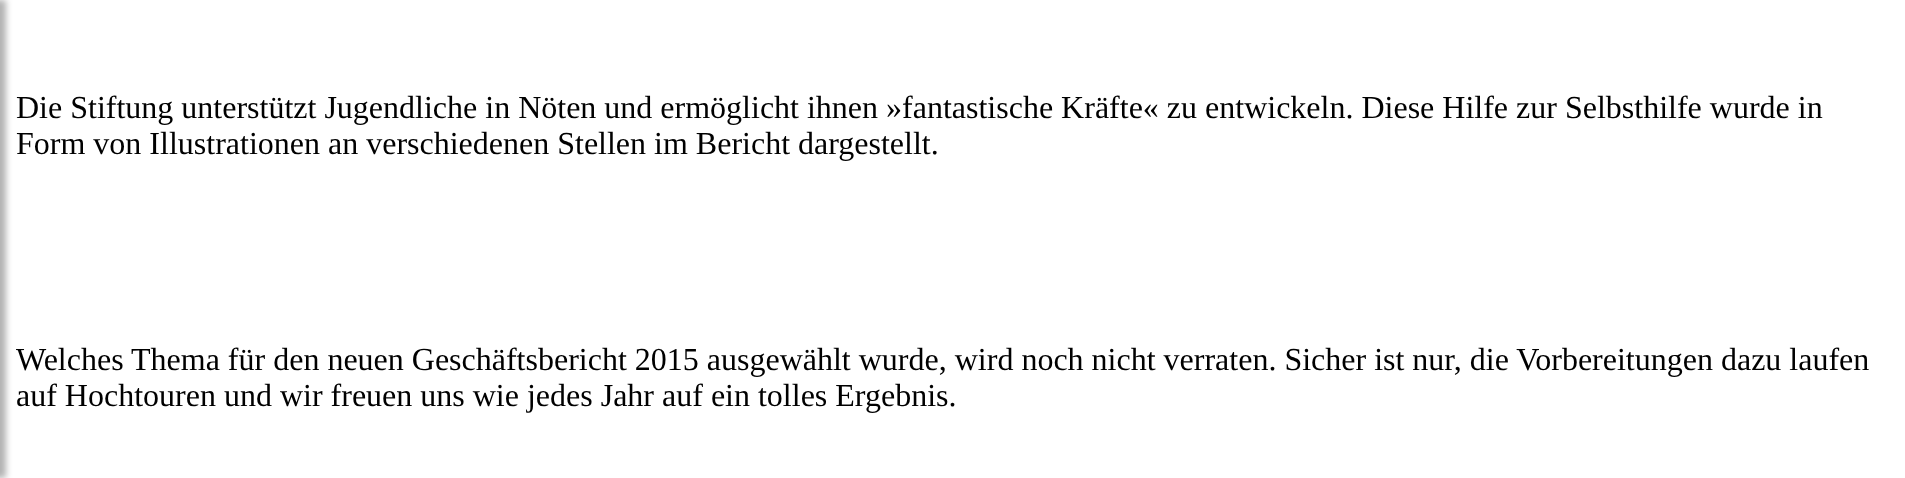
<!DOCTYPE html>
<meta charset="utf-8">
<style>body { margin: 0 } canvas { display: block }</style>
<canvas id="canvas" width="1905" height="478"></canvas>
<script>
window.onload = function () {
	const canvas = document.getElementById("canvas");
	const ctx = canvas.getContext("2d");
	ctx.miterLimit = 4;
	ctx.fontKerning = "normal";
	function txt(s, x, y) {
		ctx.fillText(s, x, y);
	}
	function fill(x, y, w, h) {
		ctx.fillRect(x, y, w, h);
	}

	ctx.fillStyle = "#FFFFFF";
	fill(0, 0, 1905, 478);
	ctx.fillStyle = "rgba(0, 0, 0, 0.3)";
	ctx.filter = "blur(3px)";
	ctx.beginPath();
	ctx.rect(-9, 0, 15, 478);
	ctx.fill();
	ctx.filter = "none";
	ctx.font = "32px Liberation Serif";
	ctx.fillStyle = "#000000";
	txt("Die Stiftung unterstützt Jugendliche in Nöten und ermöglicht ihnen »fantastische Kräfte« zu entwickeln. Diese Hilfe zur Selbsthilfe wurde in", 16, 118);
	txt("Form von Illustrationen an verschiedenen Stellen im Bericht dargestellt.", 16, 154);
	txt("Welches Thema für den neuen Geschäftsbericht 2015 ausgewählt wurde, wird noch nicht verraten. Sicher ist nur, die Vorbereitungen dazu laufen", 16, 370);
	txt("auf Hochtouren und wir freuen uns wie jedes Jahr auf ein tolles Ergebnis.", 16, 406);
};
</script>
